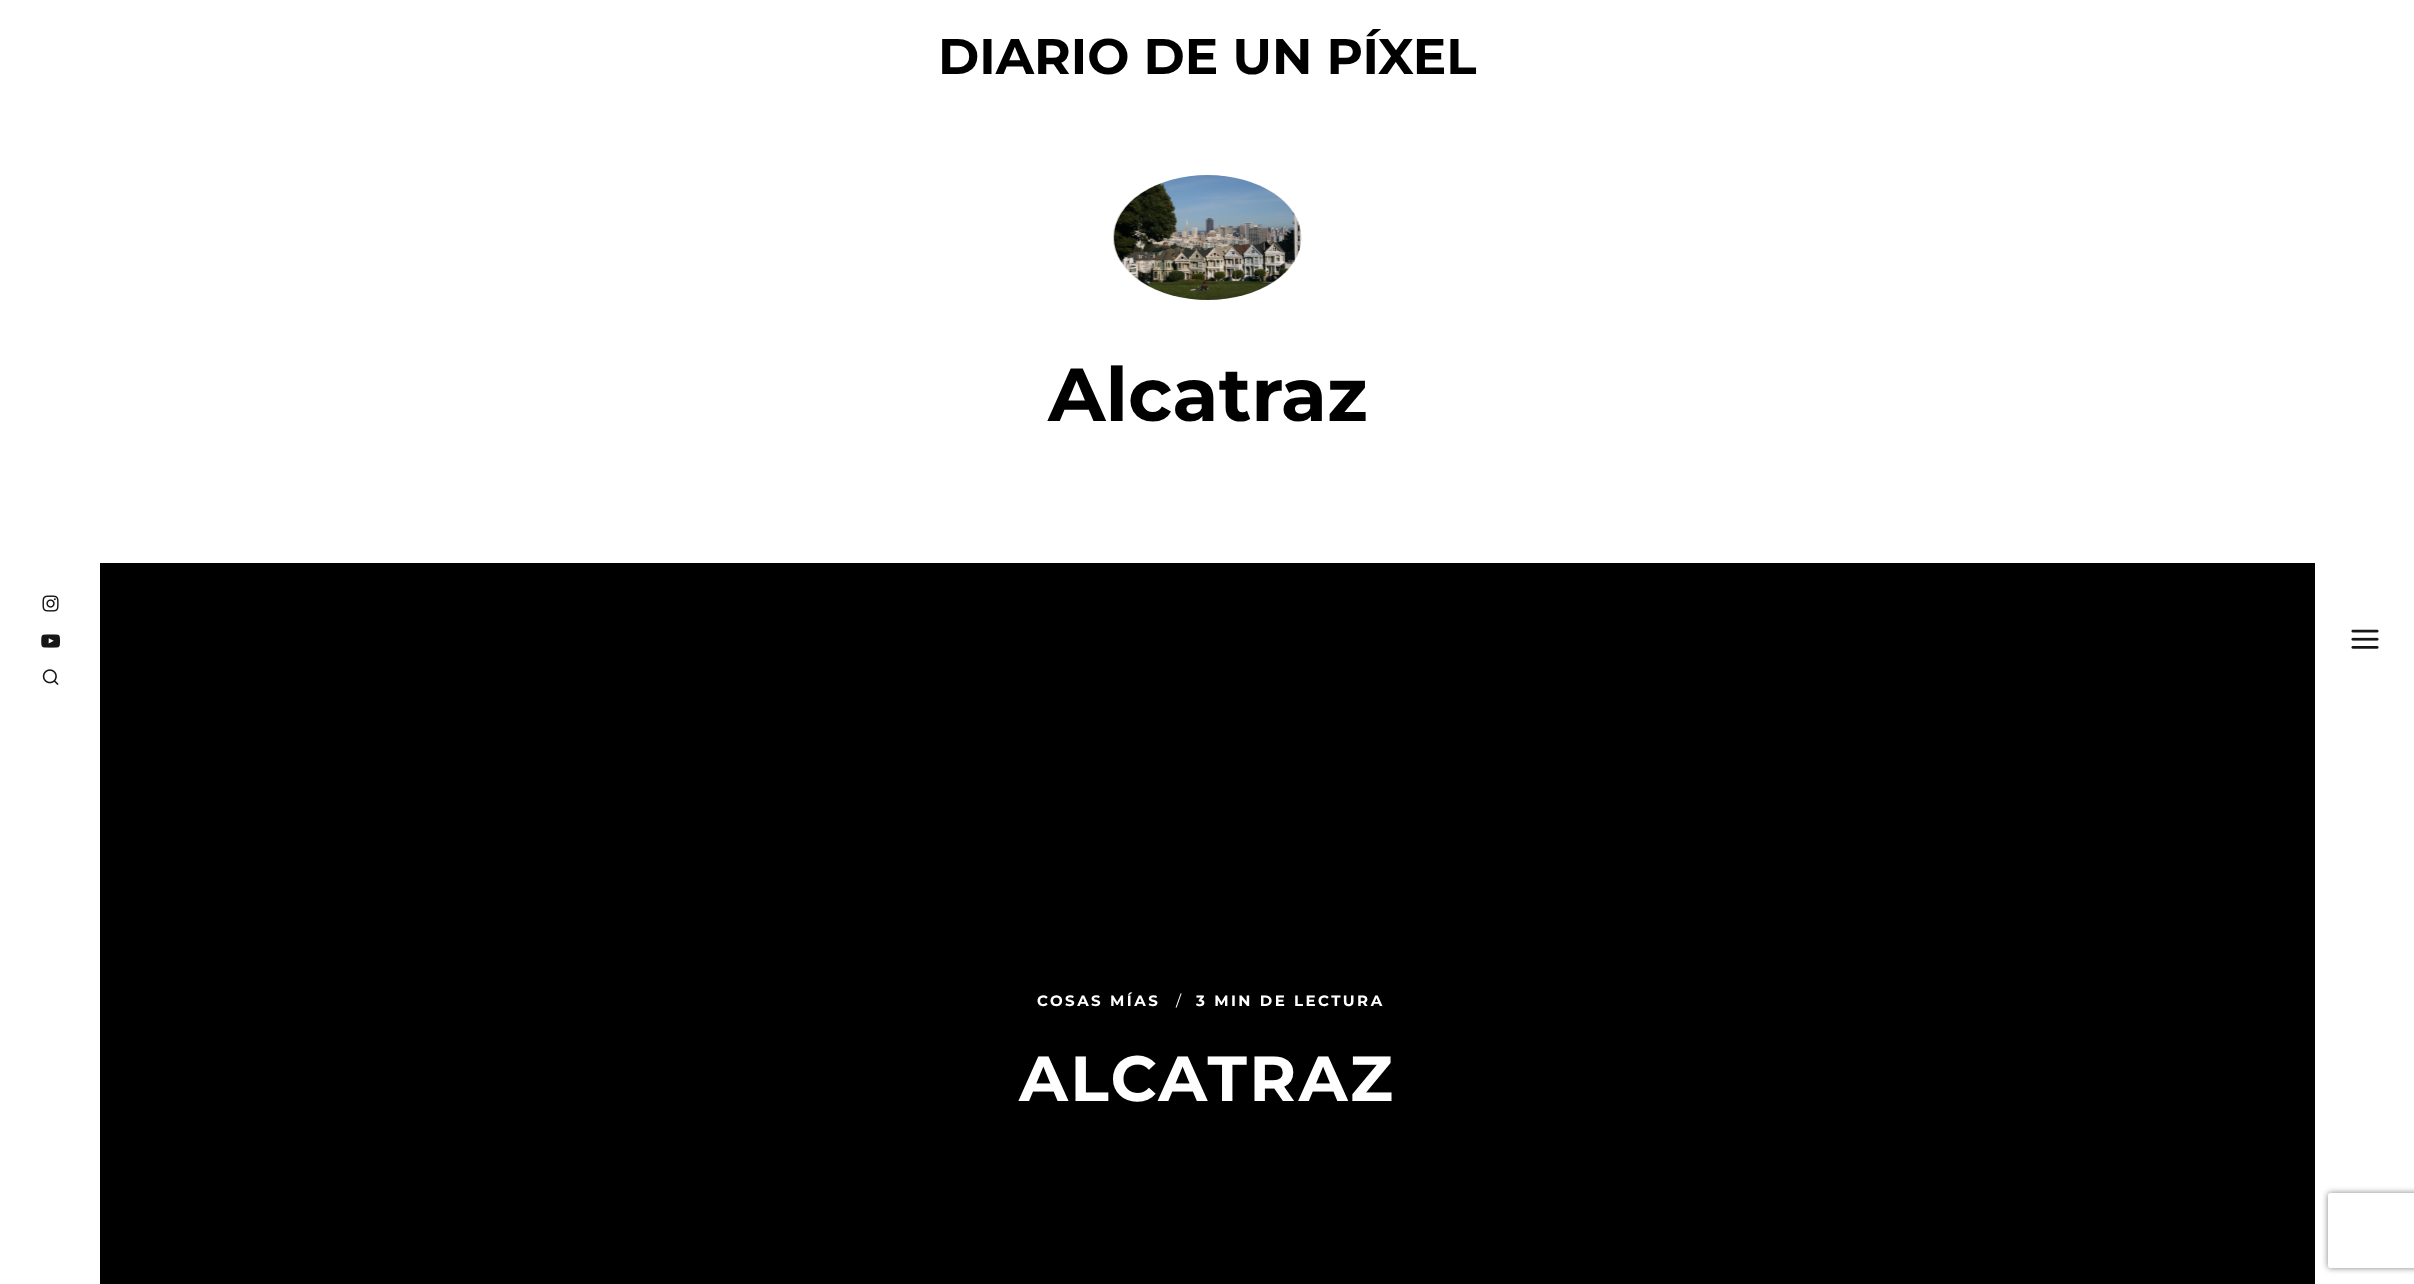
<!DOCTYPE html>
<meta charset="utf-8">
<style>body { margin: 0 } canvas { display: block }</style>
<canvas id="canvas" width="2414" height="1284"></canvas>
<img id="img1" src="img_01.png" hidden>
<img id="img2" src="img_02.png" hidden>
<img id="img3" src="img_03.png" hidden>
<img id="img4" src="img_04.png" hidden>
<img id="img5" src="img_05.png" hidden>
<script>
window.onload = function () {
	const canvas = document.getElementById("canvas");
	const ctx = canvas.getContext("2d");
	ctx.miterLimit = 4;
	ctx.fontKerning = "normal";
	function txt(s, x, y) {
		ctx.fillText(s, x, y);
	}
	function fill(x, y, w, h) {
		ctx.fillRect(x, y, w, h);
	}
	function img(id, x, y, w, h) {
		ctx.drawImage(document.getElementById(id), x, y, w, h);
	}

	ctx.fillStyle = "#FFFFFF";
	fill(0, 0, 2414, 1284);
	img("img1", 42, 595, 17, 17);
	img("img2", 41, 634, 19, 14);
	img("img3", 42, 669, 17, 16);
	img("img4", 1113, 175, 189, 125);
	ctx.fillStyle = "#000000";
	fill(100, 563, 2215, 721);
	img("img5", 2351, 629, 28, 20);
	ctx.save();
	ctx.beginPath();
	ctx.moveTo(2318, 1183);
	ctx.lineTo(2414, 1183);
	ctx.lineTo(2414, 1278);
	ctx.lineTo(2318, 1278);
	ctx.closePath();
	ctx.moveTo(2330.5, 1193);
	ctx.lineTo(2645.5, 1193);
	ctx.bezierCurveTo(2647, 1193, 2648, 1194, 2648, 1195.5);
	ctx.lineTo(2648, 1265.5);
	ctx.bezierCurveTo(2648, 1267, 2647, 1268, 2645.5, 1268);
	ctx.lineTo(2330.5, 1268);
	ctx.bezierCurveTo(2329, 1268, 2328, 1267, 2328, 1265.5);
	ctx.lineTo(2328, 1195.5);
	ctx.bezierCurveTo(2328, 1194, 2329, 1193, 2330.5, 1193);
	ctx.closePath();
	ctx.clip("evenodd");
	ctx.fillStyle = "#808080";
	ctx.filter = "blur(3px)";
	ctx.beginPath();
	ctx.roundRect(2328, 1193, 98, 75, 2.5);
	ctx.fill();
	ctx.filter = "none";
	ctx.restore();
	ctx.font = "bold 50px Montserrat";
	txt("DIARIO DE UN PÍXEL", 938, 74);
	ctx.font = "bold 75px Montserrat";
	txt("Alcatraz", 1048, 421);
	ctx.letterSpacing = "2.5px";
	ctx.font = "bold 15px Montserrat";
	ctx.fillStyle = "#FFFFFF";
	txt("COSAS MÍAS", 1037, 1006);
	ctx.font = "15px Montserrat";
	txt("/", 1176, 1006);
	ctx.font = "bold 15px Montserrat";
	txt("3 MIN DE LECTURA", 1196, 1006);
	ctx.font = "bold 63.75px Montserrat";
	txt("ALCATRAZ", 1019, 1101);
};
</script>
